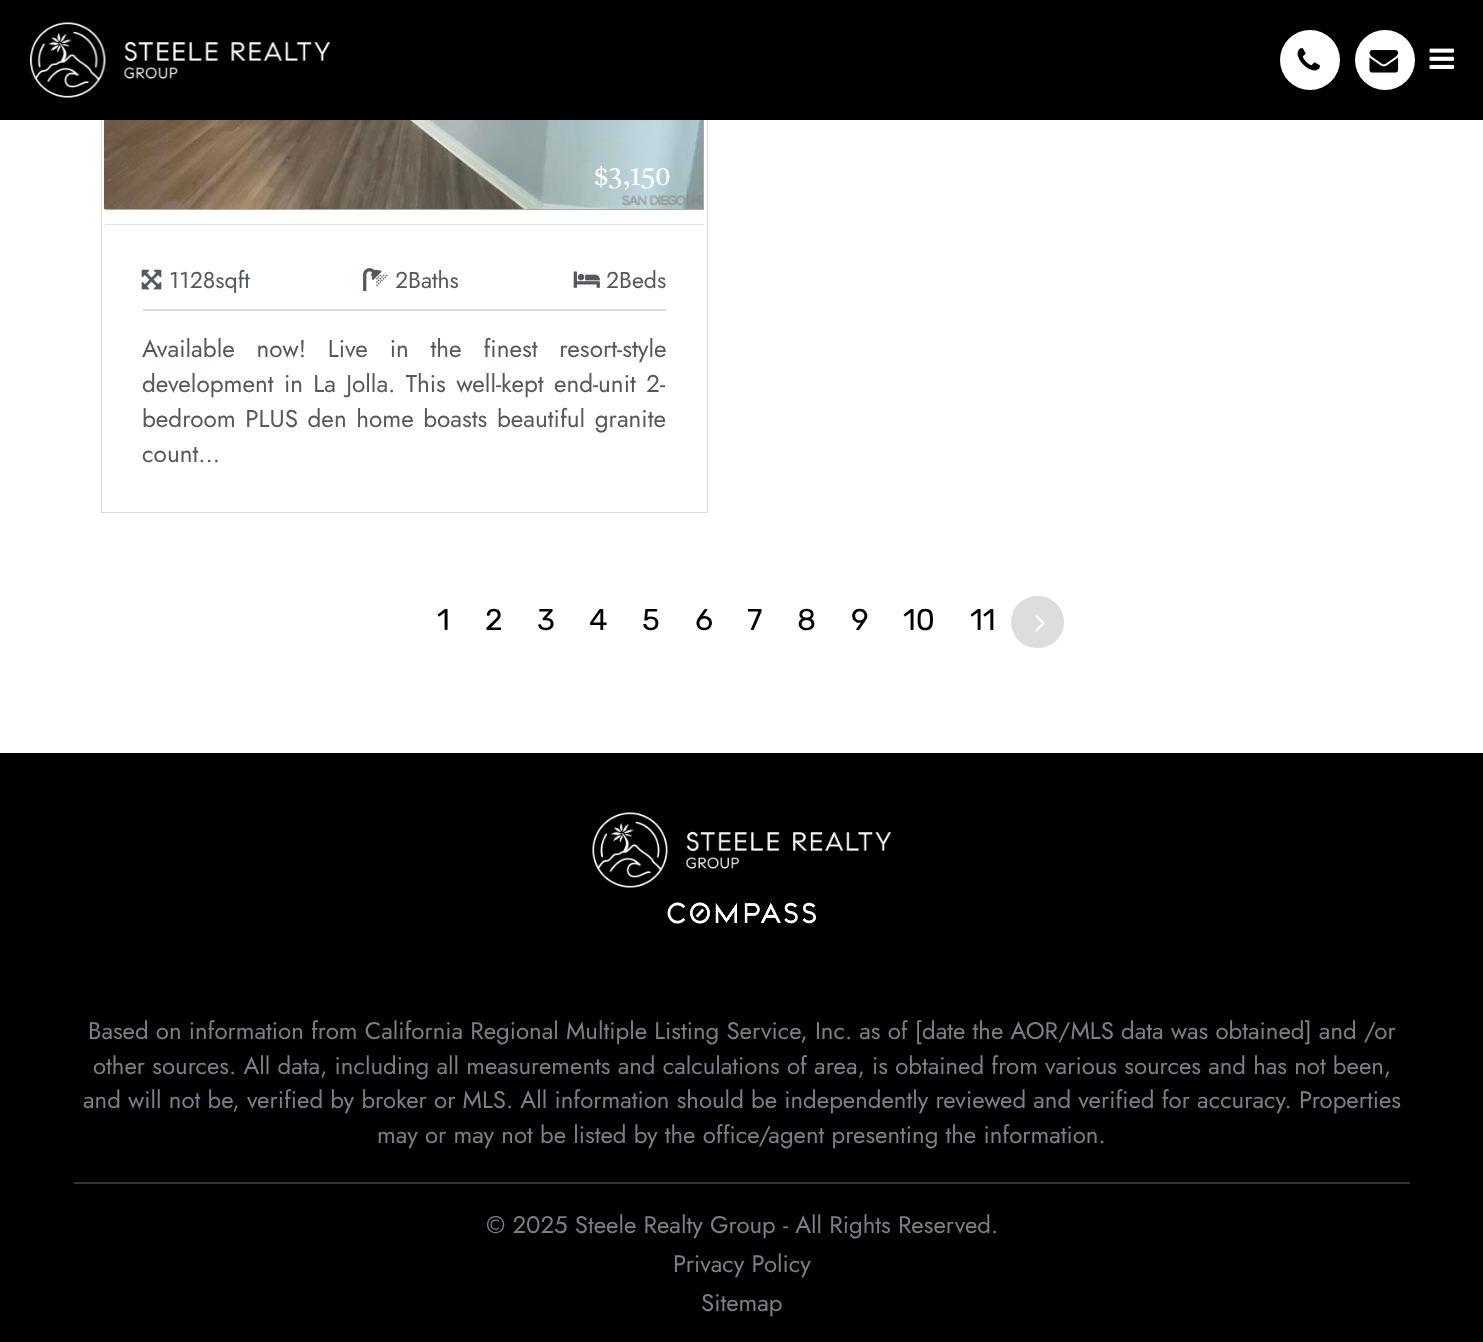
<!DOCTYPE html>
<meta charset="utf-8">
<style>body { margin: 0 } canvas { display: block }</style>
<canvas id="canvas" width="1483" height="1342"></canvas>
<img id="img1" src="img_01.png" hidden>
<img id="img2" src="img_02.png" hidden>
<img id="img3" src="img_03.png" hidden>
<img id="img4" src="img_04.png" hidden>
<img id="img5" src="img_05.png" hidden>
<img id="img6" src="img_06.png" hidden>
<img id="img7" src="img_07.png" hidden>
<img id="img8" src="img_08.png" hidden>
<img id="img9" src="img_09.png" hidden>
<img id="img10" src="img_10.png" hidden>
<img id="img11" src="img_11.png" hidden>
<script>
window.onload = function () {
	const canvas = document.getElementById("canvas");
	const ctx = canvas.getContext("2d");
	ctx.miterLimit = 4;
	ctx.fontKerning = "normal";
	function txt(s, x, y) {
		ctx.fillText(s, x, y);
	}
	function fill(x, y, w, h) {
		ctx.fillRect(x, y, w, h);
	}
	function round(x, y, w, h, r) {
		ctx.beginPath();
		ctx.roundRect(x, y, w, h, r);
		ctx.fill();
	}
	function img(id, x, y, w, h) {
		ctx.drawImage(document.getElementById(id), x, y, w, h);
	}

	ctx.fillStyle = "#FFFFFF";
	fill(0, 0, 1483, 1342);
	ctx.strokeStyle = "#DCDDDC";
	ctx.strokeRect(101.5, -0.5, 606, 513);
	ctx.fillStyle = "rgba(0, 0, 0, 0.1)";
	ctx.filter = "blur(0.5px)";
	ctx.beginPath();
	ctx.rect(105, -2, 599, 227);
	ctx.fill();
	ctx.filter = "none";
	ctx.fillStyle = "#000000";
	fill(0, 0, 1483, 120);
	img("img1", 30, 22, 300, 76);
	ctx.fillStyle = "#FFFFFF";
	ctx.beginPath();
	ctx.arc(1310, 60, 30, 0, Math.PI * 2);
	ctx.fill();
	img("img2", 1297, 48, 23, 23);
	ctx.beginPath();
	ctx.arc(1385, 60, 30, 0, Math.PI * 2);
	ctx.fill();
	img("img3", 1369, 50, 30, 23);
	img("img4", 1429, 48, 25, 21);
	fill(105, 210, 599, 14);
	ctx.fillStyle = "#A9A9A9";
	fill(105, 120, 599, 90);
	img("img5", 103, 120, 601, 89);
	ctx.fillStyle = "#DCDDDC";
	fill(143, 309, 523, 2);
	img("img6", 141, 269, 21, 21);
	img("img7", 363, 268, 25, 24);
	img("img8", 573, 271, 27, 17);
	round(1011, 596, 53, 52, 26);
	img("img9", 1035, 615, 10, 17);
	ctx.fillStyle = "#000000";
	fill(0, 753, 1483, 589);
	img("img10", 592, 812, 299, 76);
	img("img11", 667, 902, 149, 22);
	ctx.fillStyle = "#333333";
	fill(74, 1182, 1336, 2);
	ctx.font = "27px Castoro";
	ctx.fillStyle = "#FFFFFF";
	txt("$3,150", 594, 185);
	ctx.font = "23px Jost";
	ctx.fillStyle = "#54595F";
	txt("1128sqft", 169, 288);
	txt("2Baths", 395, 288);
	txt("2Beds", 606, 288);
	ctx.wordSpacing = "14.5px";
	ctx.font = "24.3px Jost";
	txt("Available now! Live in the finest resort-style", 142, 357);
	ctx.wordSpacing = "3px";
	txt("development in La Jolla. This well-kept end-unit 2-", 142, 392);
	ctx.wordSpacing = "2.25px";
	txt("bedroom PLUS den home boasts beautiful granite", 142, 427);
	ctx.wordSpacing = "0px";
	txt("count...", 142, 462);
	ctx.font = "30px Rubik";
	ctx.fillStyle = "#000000";
	txt("1", 437, 630);
	txt("2", 485, 630);
	txt("3", 537, 630);
	txt("4", 589, 630);
	txt("5", 642, 630);
	txt("6", 695, 630);
	txt("7", 747, 630);
	txt("8", 797, 630);
	txt("9", 851, 630);
	txt("10", 903, 630);
	txt("11", 970, 630);
	ctx.font = "24px Jost";
	ctx.fillStyle = "#7B8088";
	txt("Based on information from California Regional Multiple Listing Service, Inc. as of [date the AOR/MLS data was obtained] and /or", 88, 1039);
	txt("other sources. All data, including all measurements and calculations of area, is obtained from various sources and has not been,", 93, 1074);
	txt("and will not be, verified by broker or MLS. All information should be independently reviewed and verified for accuracy. Properties", 83, 1108);
	txt("may or may not be listed by the office/agent presenting the information.", 377, 1143);
	txt("© 2025 Steele Realty Group - All Rights Reserved.", 486, 1233);
	txt("Privacy Policy", 673, 1272);
	txt("Sitemap", 701, 1311);
};
</script>
